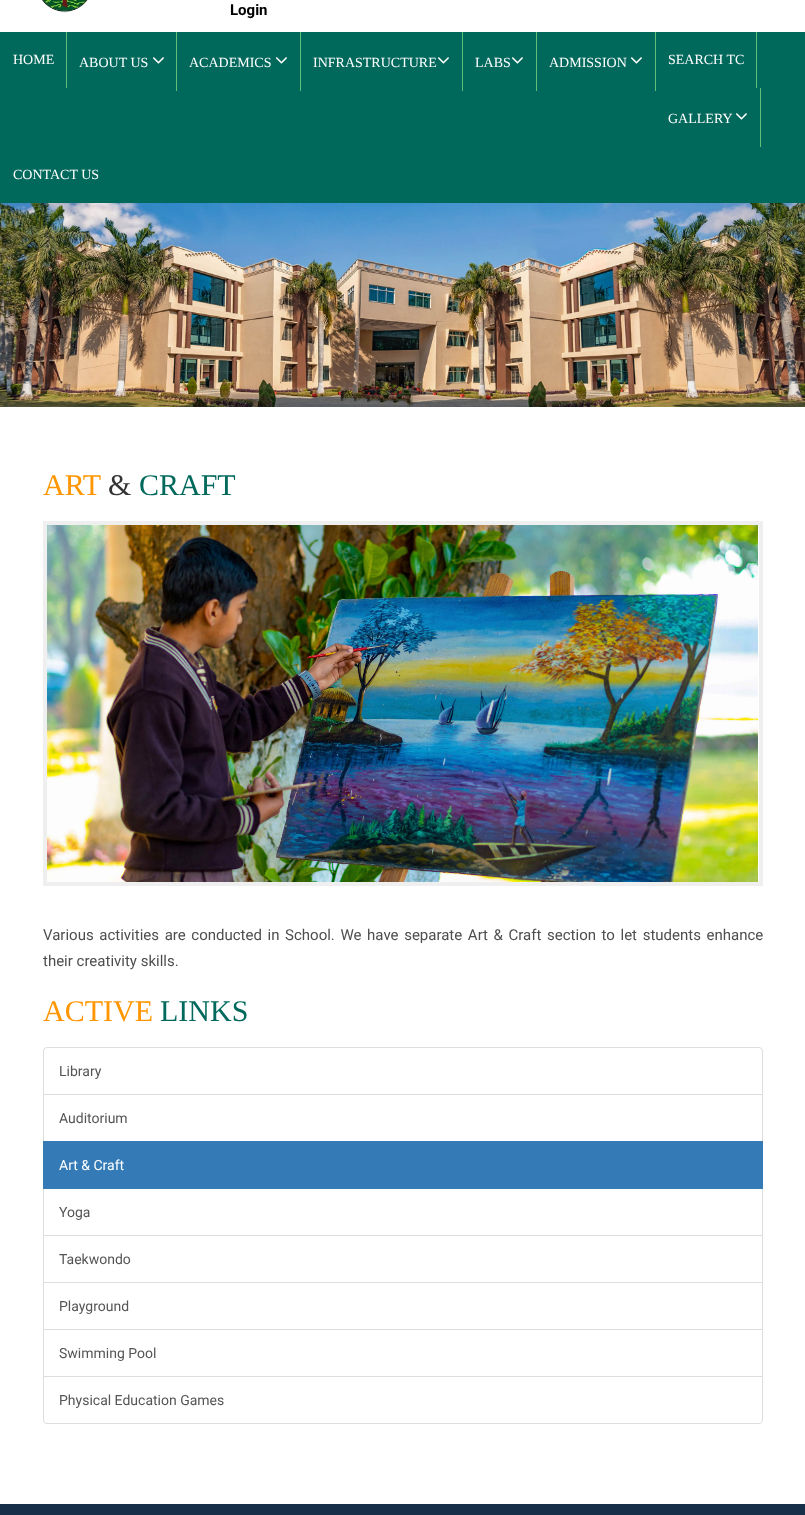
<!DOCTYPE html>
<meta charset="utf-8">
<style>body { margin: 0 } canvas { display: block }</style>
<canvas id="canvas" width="805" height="1515"></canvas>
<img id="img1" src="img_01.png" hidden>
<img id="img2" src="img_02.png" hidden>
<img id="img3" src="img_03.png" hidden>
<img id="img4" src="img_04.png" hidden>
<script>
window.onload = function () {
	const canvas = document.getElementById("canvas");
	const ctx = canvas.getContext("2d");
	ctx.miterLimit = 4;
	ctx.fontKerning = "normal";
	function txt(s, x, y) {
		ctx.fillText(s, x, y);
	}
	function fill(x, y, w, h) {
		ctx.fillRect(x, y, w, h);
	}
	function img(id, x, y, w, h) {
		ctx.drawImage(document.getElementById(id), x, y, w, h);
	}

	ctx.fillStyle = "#FFFFFF";
	fill(0, 0, 805, 1515);
	img("img1", 42, 0, 46, 13);
	ctx.fillStyle = "#00695C";
	fill(0, 32, 805, 171);
	ctx.fillStyle = "#5FC078";
	fill(66, 32, 1, 56);
	fill(176, 32, 1, 59);
	img("img2", 152, 57, 12, 7);
	fill(300, 32, 1, 59);
	img("img2", 275, 57, 12, 7);
	fill(462, 32, 1, 59);
	img("img2", 437, 57, 12, 7);
	fill(536, 32, 1, 59);
	img("img2", 511, 57, 12, 7);
	fill(655, 32, 1, 59);
	img("img2", 630, 57, 12, 7);
	fill(756, 32, 1, 56);
	fill(760, 88, 1, 59);
	img("img2", 735, 113, 12, 7);
	img("img3", 0, 203, 805, 204);
	ctx.strokeStyle = "#EFEFEF";
	ctx.lineWidth = 4;
	ctx.strokeRect(45, 523, 716, 361);
	img("img4", 47, 525, 711, 357);
	ctx.beginPath();
	ctx.roundRect(43.5, 1047.5, 719, 47, [3.5, 3.5, 0, 0]);
	ctx.strokeStyle = "#DDDDDD";
	ctx.lineWidth = 1;
	ctx.stroke();
	ctx.strokeRect(43.5, 1094.5, 719, 47);
	ctx.strokeRect(43.5, 1188.5, 719, 47);
	ctx.fillStyle = "#337AB7";
	fill(43, 1141, 720, 48);
	ctx.strokeRect(43.5, 1235.5, 719, 47);
	ctx.strokeRect(43.5, 1282.5, 719, 47);
	ctx.strokeRect(43.5, 1329.5, 719, 47);
	ctx.fillStyle = "#FFFFFF";
	ctx.beginPath();
	ctx.roundRect(43.5, 1376.5, 719, 47, [0, 0, 3.5, 3.5]);
	ctx.fill();
	ctx.stroke();
	ctx.fillStyle = "#182F4A";
	fill(0, 1504, 805, 11);
	ctx.font = "bold 15px Roboto";
	ctx.fillStyle = "#000000";
	txt("Login", 230, 15);
	ctx.font = "14px Liberation Serif";
	ctx.fillStyle = "#FFFFFF";
	txt("HOME", 13, 64);
	txt("ABOUT US", 79, 67);
	txt("ACADEMICS", 189, 67);
	txt("INFRASTRUCTURE", 313, 67);
	txt("LABS", 475, 67);
	txt("ADMISSION", 549, 67);
	txt("SEARCH TC", 668, 64);
	txt("GALLERY", 668, 123);
	txt("CONTACT US", 13, 179);
	ctx.font = "30px Liberation Serif";
	ctx.fillStyle = "#FF9600";
	txt("ART", 43, 495);
	ctx.fillStyle = "#353434";
	txt("&", 108, 495);
	ctx.fillStyle = "#00695C";
	txt("CRAFT", 139, 495);
	ctx.wordSpacing = "1.9px";
	ctx.font = "15px Roboto";
	ctx.fillStyle = "#4E4E4E";
	txt("Various activities are conducted in School. We have separate Art & Craft section to let students enhance", 43, 940);
	ctx.wordSpacing = "0px";
	txt("their creativity skills.", 43, 966);
	ctx.font = "30px Liberation Serif";
	ctx.fillStyle = "#FF9600";
	txt("ACTIVE", 43, 1021);
	ctx.fillStyle = "#00695C";
	txt("LINKS", 160, 1021);
	ctx.font = "14px Roboto";
	ctx.fillStyle = "#555555";
	txt("Library", 59, 1076);
	txt("Auditorium", 59, 1123);
	ctx.fillStyle = "#FFFFFF";
	txt("Art & Craft", 59, 1170);
	ctx.fillStyle = "#555555";
	txt("Yoga", 59, 1217);
	txt("Taekwondo", 59, 1264);
	txt("Playground", 59, 1311);
	txt("Swimming Pool", 59, 1358);
	txt("Physical Education Games", 59, 1405);
};
</script>
